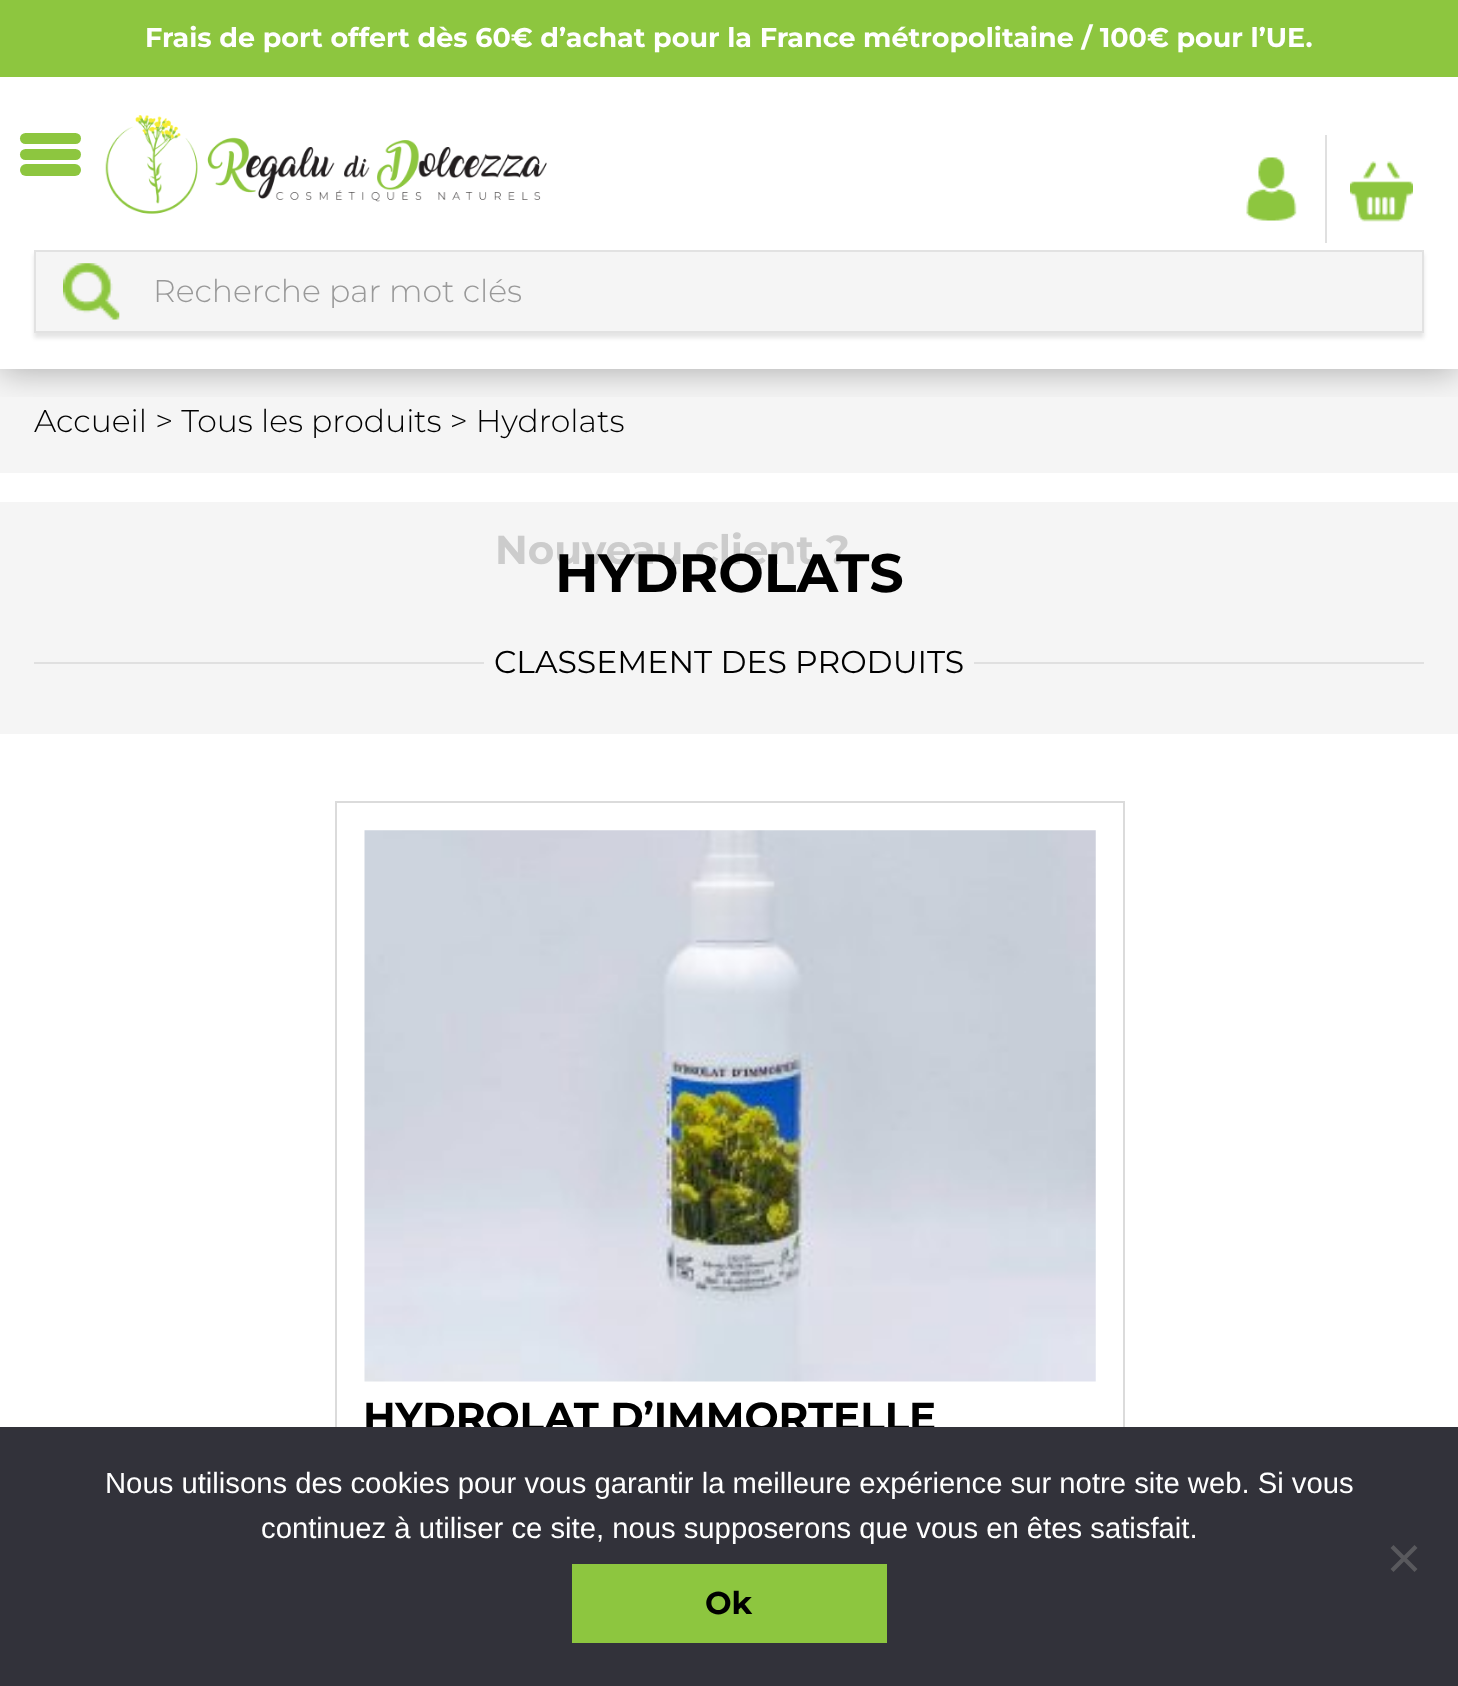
<!DOCTYPE html>
<meta charset="utf-8">
<style>body { margin: 0 } canvas { display: block }</style>
<canvas id="canvas" width="1458" height="1686"></canvas>
<img id="img1" src="img_01.png" hidden>
<img id="img2" src="img_02.png" hidden>
<img id="img3" src="img_03.png" hidden>
<img id="img4" src="img_04.png" hidden>
<img id="img5" src="img_05.png" hidden>
<script>
window.onload = function () {
	const canvas = document.getElementById("canvas");
	const ctx = canvas.getContext("2d");
	ctx.miterLimit = 4;
	ctx.fontKerning = "normal";
	function txt(s, x, y) {
		ctx.fillText(s, x, y);
	}
	function fill(x, y, w, h) {
		ctx.fillRect(x, y, w, h);
	}
	function round(x, y, w, h, r) {
		ctx.beginPath();
		ctx.roundRect(x, y, w, h, r);
		ctx.fill();
	}
	function img(id, x, y, w, h) {
		ctx.drawImage(document.getElementById(id), x, y, w, h);
	}

	ctx.fillStyle = "#FFFFFF";
	fill(0, 0, 1458, 1686);
	ctx.fillStyle = "#F5F5F5";
	fill(0, 369, 1458, 104);
	ctx.save();
	ctx.beginPath();
	ctx.rect(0, 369, 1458, 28);
	ctx.clip();
	ctx.fillStyle = "rgba(0, 0, 0, 0.3)";
	ctx.filter = "blur(17px)";
	ctx.beginPath();
	ctx.rect(0, 2, 1458, 369);
	ctx.fill();
	ctx.filter = "none";
	ctx.restore();
	ctx.fillStyle = "#8DC63F";
	fill(0, 0, 1458, 77);
	round(20, 149, 61, 11, 5.5);
	round(20, 133, 61, 11, 5.5);
	round(20, 164, 61, 12, 6);
	img("img1", 105, 115, 442, 99);
	ctx.fillStyle = "rgba(0, 0, 0, 0.1)";
	ctx.filter = "blur(2px)";
	ctx.beginPath();
	ctx.rect(34, 254, 1390, 84);
	ctx.fill();
	ctx.filter = "none";
	ctx.fillStyle = "#F5F5F5";
	fill(36, 252, 1386, 79);
	img("img2", 63, 263, 57, 57);
	ctx.strokeStyle = "#E2E2E2";
	ctx.lineWidth = 2;
	ctx.strokeRect(35, 251, 1388, 81);
	img("img3", 1350, 161, 63, 61);
	ctx.fillStyle = "#E0E0E0";
	fill(1325, 135, 2, 108);
	img("img4", 1246, 157, 51, 64);
	ctx.fillStyle = "#F5F5F5";
	fill(0, 502, 1458, 232);
	ctx.fillStyle = "#E0E0E0";
	fill(34, 662, 450, 2);
	fill(974, 662, 450, 2);
	ctx.strokeStyle = "#DBDBDB";
	ctx.strokeRect(336, 802, 788, 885);
	img("img5", 364, 830, 732, 552);
	ctx.font = "bold 27px Montserrat";
	ctx.fillStyle = "#FFFFFF";
	txt("Frais de port offert dès 60€ d’achat pour la France métropolitaine / 100€ pour l’UE.", 145, 47);
	ctx.font = "300 31.5px Montserrat";
	ctx.fillStyle = "#999999";
	txt("Recherche par mot clés", 153, 302);
	ctx.font = "bold 40.5px Montserrat";
	ctx.fillStyle = "#CCCCCC";
	txt("Nouveau client ?", 495, 564);
	ctx.font = "300 31.5px Montserrat";
	ctx.fillStyle = "#000000";
	txt("Accueil > Tous les produits > Hydrolats", 34, 432);
	ctx.font = "bold 54px Montserrat";
	txt("HYDROLATS", 555, 592);
	ctx.font = "31.5px Montserrat";
	txt("CLASSEMENT DES PRODUITS", 494, 673);
	ctx.font = "bold 40.5px Montserrat";
	txt("HYDROLAT D’IMMORTELLE", 363, 1431);
	ctx.fillStyle = "#32323A";
	fill(0, 1427, 1458, 259);
	ctx.font = "29.25px Liberation Sans";
	ctx.fillStyle = "#FFFFFF";
	txt("Nous utilisons des cookies pour vous garantir la meilleure expérience sur notre site web. Si vous", 105, 1493);
	txt("continuez à utiliser ce site, nous supposerons que vous en êtes satisfait.", 261, 1538);
	ctx.fillStyle = "#59595D";
	ctx.beginPath();
	ctx.moveTo(1414.5, 1545);
	ctx.lineTo(1417.5, 1548);
	ctx.lineTo(1393.5, 1572);
	ctx.lineTo(1390.5, 1569);
	ctx.closePath();
	ctx.fill();
	ctx.beginPath();
	ctx.moveTo(1390.5, 1548);
	ctx.lineTo(1393.5, 1545);
	ctx.lineTo(1417.5, 1569);
	ctx.lineTo(1414.5, 1572);
	ctx.closePath();
	ctx.fill();
	ctx.fillStyle = "#8DC63F";
	fill(572, 1564, 315, 79);
	ctx.font = "bold 31.5px Montserrat";
	ctx.fillStyle = "#000000";
	txt("Ok", 705, 1614);
};
</script>
